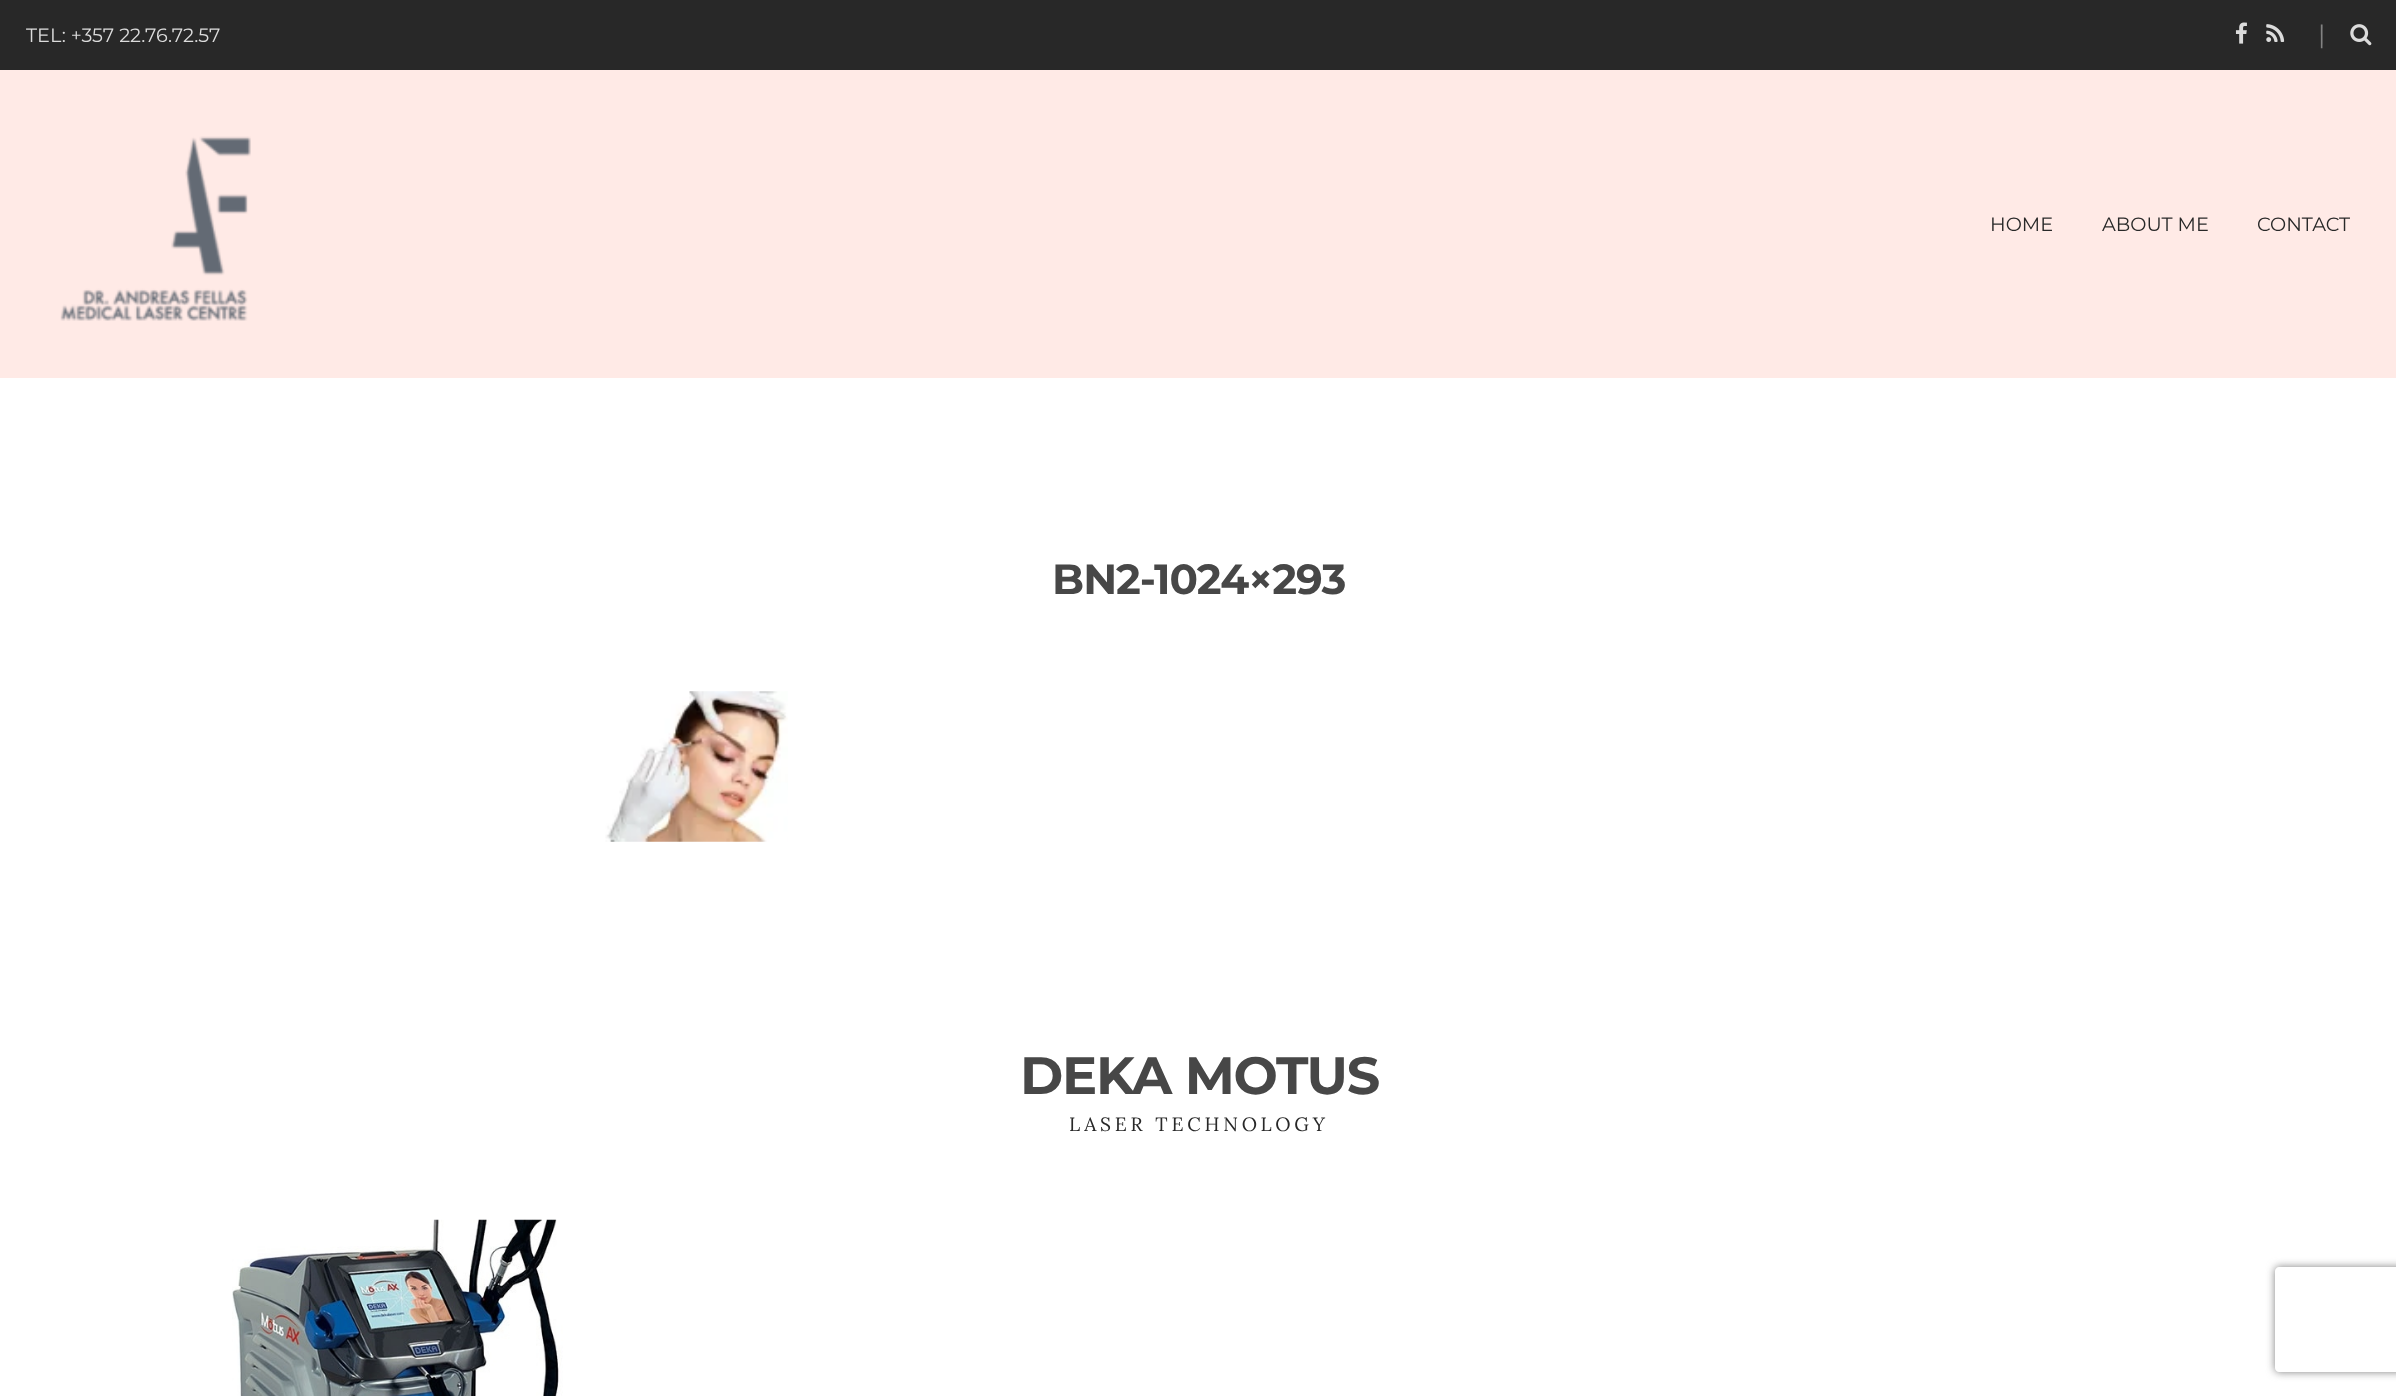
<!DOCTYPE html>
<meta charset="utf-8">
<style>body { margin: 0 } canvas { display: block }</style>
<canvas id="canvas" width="2396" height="1396"></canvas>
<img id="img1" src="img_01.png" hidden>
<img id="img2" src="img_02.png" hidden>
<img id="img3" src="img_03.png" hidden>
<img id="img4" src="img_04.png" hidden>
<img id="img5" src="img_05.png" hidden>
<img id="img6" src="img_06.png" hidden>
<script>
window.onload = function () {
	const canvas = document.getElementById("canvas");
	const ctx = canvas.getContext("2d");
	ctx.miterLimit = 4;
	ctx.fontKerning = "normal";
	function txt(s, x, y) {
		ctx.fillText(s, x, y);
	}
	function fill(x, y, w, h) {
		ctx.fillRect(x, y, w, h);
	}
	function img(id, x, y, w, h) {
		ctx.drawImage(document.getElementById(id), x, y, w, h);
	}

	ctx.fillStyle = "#FFFFFF";
	fill(0, 0, 2396, 1396);
	ctx.fillStyle = "#282828";
	fill(0, 0, 2396, 70);
	img("img1", 2235, 22, 12, 22);
	img("img2", 2266, 24, 19, 18);
	img("img3", 2350, 24, 22, 22);
	ctx.fillStyle = "#FFEAE6";
	fill(0, 70, 2396, 308);
	img("img4", 60, 136, 191, 185);
	img("img5", 605, 691, 183, 151);
	img("img6", 232, 1219, 331, 177);
	ctx.save();
	ctx.beginPath();
	ctx.moveTo(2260, 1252);
	ctx.lineTo(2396, 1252);
	ctx.lineTo(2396, 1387);
	ctx.lineTo(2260, 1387);
	ctx.closePath();
	ctx.moveTo(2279, 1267);
	ctx.lineTo(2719, 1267);
	ctx.bezierCurveTo(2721, 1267, 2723, 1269, 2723, 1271);
	ctx.lineTo(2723, 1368);
	ctx.bezierCurveTo(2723, 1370, 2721, 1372, 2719, 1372);
	ctx.lineTo(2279, 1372);
	ctx.bezierCurveTo(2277, 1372, 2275, 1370, 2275, 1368);
	ctx.lineTo(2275, 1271);
	ctx.bezierCurveTo(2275, 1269, 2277, 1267, 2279, 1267);
	ctx.closePath();
	ctx.clip("evenodd");
	ctx.fillStyle = "#808080";
	ctx.filter = "blur(4.5px)";
	ctx.beginPath();
	ctx.roundRect(2275, 1267, 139, 105, 4);
	ctx.fill();
	ctx.filter = "none";
	ctx.restore();
	ctx.font = "19.25px Montserrat";
	ctx.fillStyle = "#DCDCDC";
	txt("TEL: +357 22.76.72.57", 26, 42);
	ctx.font = "23px Lora";
	ctx.fillStyle = "#828282";
	txt("|", 2319, 42);
	ctx.font = "19.25px Montserrat";
	ctx.fillStyle = "#282828";
	txt("HOME", 1990, 231);
	txt("ABOUT ME", 2102, 231);
	txt("CONTACT", 2257, 231);
	ctx.letterSpacing = "-1px";
	ctx.font = "bold 42px Montserrat";
	ctx.fillStyle = "#474747";
	txt("BN2-1024×293", 1052, 594);
	ctx.letterSpacing = "-1.25px";
	ctx.font = "bold 52.5px Montserrat";
	txt("DEKA MOTUS", 1020, 1094);
	ctx.letterSpacing = "3.8px";
	ctx.font = "19.25px Lora";
	ctx.fillStyle = "#282828";
	txt("LASER TECHNOLOGY", 1069, 1131);
};
</script>
